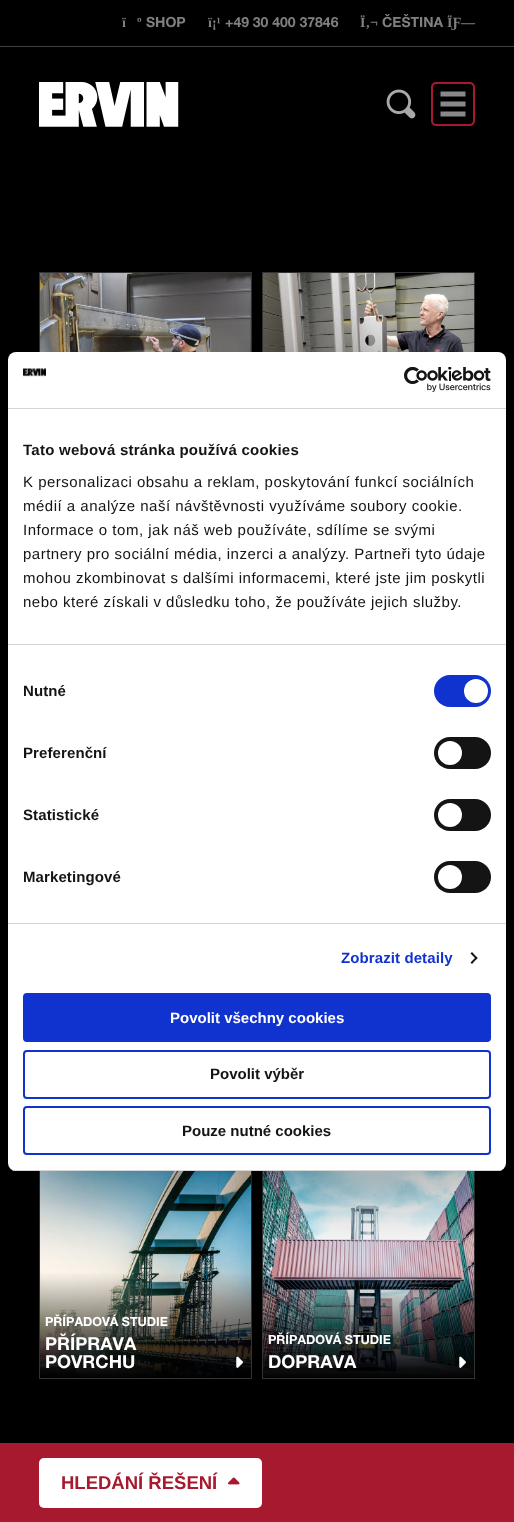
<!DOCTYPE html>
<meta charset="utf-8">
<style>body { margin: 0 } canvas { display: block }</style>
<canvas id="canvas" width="514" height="1522"></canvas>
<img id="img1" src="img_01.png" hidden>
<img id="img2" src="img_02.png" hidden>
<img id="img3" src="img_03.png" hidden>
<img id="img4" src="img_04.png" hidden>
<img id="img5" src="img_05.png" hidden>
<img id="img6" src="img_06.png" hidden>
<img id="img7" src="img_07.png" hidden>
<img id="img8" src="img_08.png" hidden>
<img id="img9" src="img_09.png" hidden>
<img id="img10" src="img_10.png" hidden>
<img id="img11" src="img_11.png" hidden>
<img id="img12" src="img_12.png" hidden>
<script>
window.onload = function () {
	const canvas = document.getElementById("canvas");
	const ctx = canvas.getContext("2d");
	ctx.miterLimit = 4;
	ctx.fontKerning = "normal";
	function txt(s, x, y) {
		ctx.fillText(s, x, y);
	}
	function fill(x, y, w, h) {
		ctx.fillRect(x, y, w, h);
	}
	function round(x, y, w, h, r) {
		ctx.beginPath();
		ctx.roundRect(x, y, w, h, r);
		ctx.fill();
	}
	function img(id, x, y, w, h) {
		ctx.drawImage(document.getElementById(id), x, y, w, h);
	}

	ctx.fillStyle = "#000000";
	fill(0, 0, 514, 1522);
	ctx.fillStyle = "#404040";
	fill(0, 46, 514, 1);
	img("img1", 39, 82, 140, 45);
	img("img2", 386, 89, 30, 30);
	img("img3", 431, 82, 44, 44);
	ctx.strokeStyle = "#333333";
	ctx.strokeRect(39.5, 272.5, 212, 212);
	img("img4", 40, 273, 211, 79);
	ctx.strokeRect(262.5, 272.5, 212, 212);
	img("img5", 263, 273, 211, 79);
	ctx.strokeRect(39.5, 1166.5, 212, 212);
	img("img6", 40, 1171, 211, 207);
	img("img7", 236, 1356, 7, 12);
	ctx.strokeRect(262.5, 1166.5, 212, 212);
	img("img8", 263, 1171, 211, 207);
	img("img9", 459, 1356, 7, 12);
	ctx.fillStyle = "rgba(0, 0, 0, 0.3)";
	ctx.filter = "blur(34px)";
	ctx.beginPath();
	ctx.roundRect(8, 384, 498, 819, 8);
	ctx.fill();
	ctx.filter = "none";
	ctx.fillStyle = "#FFFFFF";
	round(8, 352, 498, 819, 8);
	ctx.fillStyle = "#D6D6D6";
	fill(8, 408, 498, 1);
	img("img10", 23, 368, 23, 9);
	img("img11", 404, 367, 87, 25);
	fill(8, 644, 498, 1);
	fill(8, 923, 498, 1);
	ctx.fillStyle = "#1032CF";
	round(434, 675, 57, 32, 16);
	ctx.fillStyle = "#FFFFFF";
	ctx.beginPath();
	ctx.arc(476, 691, 12, 0, Math.PI * 2);
	ctx.fill();
	ctx.fillStyle = "#141414";
	round(434, 737, 57, 32, 16);
	ctx.fillStyle = "#FFFFFF";
	ctx.beginPath();
	ctx.arc(450, 753, 12, 0, Math.PI * 2);
	ctx.fill();
	ctx.fillStyle = "#141414";
	round(434, 799, 57, 32, 16);
	ctx.fillStyle = "#FFFFFF";
	ctx.beginPath();
	ctx.arc(450, 815, 12, 0, Math.PI * 2);
	ctx.fill();
	ctx.fillStyle = "#141414";
	round(434, 861, 57, 32, 16);
	ctx.fillStyle = "#FFFFFF";
	ctx.beginPath();
	ctx.arc(450, 877, 12, 0, Math.PI * 2);
	ctx.fill();
	ctx.fillStyle = "#141414";
	ctx.beginPath();
	ctx.moveTo(472, 952);
	ctx.lineTo(477.5, 958);
	ctx.lineTo(476.5, 959.5);
	ctx.lineTo(470.5, 953.5);
	ctx.closePath();
	ctx.fill();
	ctx.beginPath();
	ctx.moveTo(476.5, 956.5);
	ctx.lineTo(477.5, 958);
	ctx.lineTo(472, 964);
	ctx.lineTo(470.5, 962.5);
	ctx.closePath();
	ctx.fill();
	ctx.save();
	ctx.beginPath();
	ctx.roundRect(8, 352, 498, 819, 8);
	ctx.clip();
	ctx.fillStyle = "#D6D6D6";
	fill(8, 1170, 498, 1);
	ctx.restore();
	ctx.fillStyle = "#1032CF";
	ctx.beginPath();
	ctx.roundRect(24, 994, 466, 47, 3);
	ctx.fill();
	ctx.strokeStyle = "#1032CF";
	ctx.lineWidth = 2;
	ctx.stroke();
	ctx.beginPath();
	ctx.roundRect(24, 1051, 466, 47, 3);
	ctx.stroke();
	ctx.beginPath();
	ctx.roundRect(24, 1107, 466, 47, 3);
	ctx.stroke();
	ctx.fillStyle = "#A6192E";
	fill(0, 1443, 514, 79);
	ctx.fillStyle = "#FFFFFF";
	round(39, 1458, 223, 50, 5);
	img("img12", 228, 1477, 12, 8);
	ctx.font = "bold 14px Liberation Serif";
	ctx.fillStyle = "#808080";
	txt("ï", 122, 27);
	txt("º", 137, 27);
	ctx.font = "bold 14px Helvetica Neue";
	txt("SHOP", 146, 27);
	ctx.font = "bold 14px Liberation Serif";
	txt("ï¡¹", 208, 27);
	ctx.font = "bold 14px Helvetica Neue";
	txt("+49 30 400 37846", 225, 27);
	ctx.font = "bold 14px Liberation Serif";
	txt("Ï‚¬", 360, 27);
	ctx.font = "bold 14px Helvetica Neue";
	txt("ČEŠTINA", 382, 27);
	ctx.font = "bold 14px Liberation Serif";
	txt("ÏƑ—", 447, 27);
	ctx.font = "bold 12.5px Helvetica Neue";
	ctx.fillStyle = "#FFFFFF";
	txt("PŘÍPADOVÁ STUDIE", 45, 1326);
	ctx.font = "bold 18px Helvetica Neue";
	txt("PŘÍPRAVA", 45, 1350);
	txt("POVRCHU", 45, 1368);
	ctx.font = "bold 12.5px Helvetica Neue";
	txt("PŘÍPADOVÁ STUDIE", 268, 1344);
	ctx.font = "bold 18px Helvetica Neue";
	txt("DOPRAVA", 268, 1368);
	ctx.letterSpacing = "0.25px";
	ctx.font = "bold 15px Liberation Sans";
	ctx.fillStyle = "#141414";
	txt("Tato webová stránka používá cookies", 23, 455);
	ctx.letterSpacing = "0.5px";
	ctx.font = "15px Liberation Sans";
	txt("K personalizaci obsahu a reklam, poskytování funkcí sociálních", 23, 487);
	txt("médií a analýze naší návštěvnosti využíváme soubory cookie.", 23, 511);
	txt("Informace o tom, jak náš web používáte, sdílíme se svými", 23, 535);
	txt("partnery pro sociální média, inzerci a analýzy. Partneři tyto údaje", 23, 559);
	txt("mohou zkombinovat s dalšími informacemi, které jste jim poskytli", 23, 583);
	txt("nebo které získali v důsledku toho, že používáte jejich služby.", 23, 607);
	ctx.letterSpacing = "0.1px";
	ctx.font = "bold 15px Liberation Sans";
	txt("Nutné", 23, 696);
	txt("Preferenční", 23, 758);
	txt("Statistické", 23, 820);
	txt("Marketingové", 23, 882);
	ctx.fillStyle = "#1032CF";
	txt("Zobrazit detaily", 341, 963);
	ctx.letterSpacing = "0px";
	ctx.fillStyle = "#FFFFFF";
	txt("Povolit všechny cookies", 170, 1023);
	ctx.fillStyle = "#141414";
	txt("Povolit výběr", 210, 1079);
	txt("Pouze nutné cookies", 182, 1136);
	ctx.font = "bold 18.5px Liberation Sans";
	ctx.fillStyle = "#A6192E";
	txt("HLEDÁNÍ ŘEŠENÍ", 61, 1489);
};
</script>
